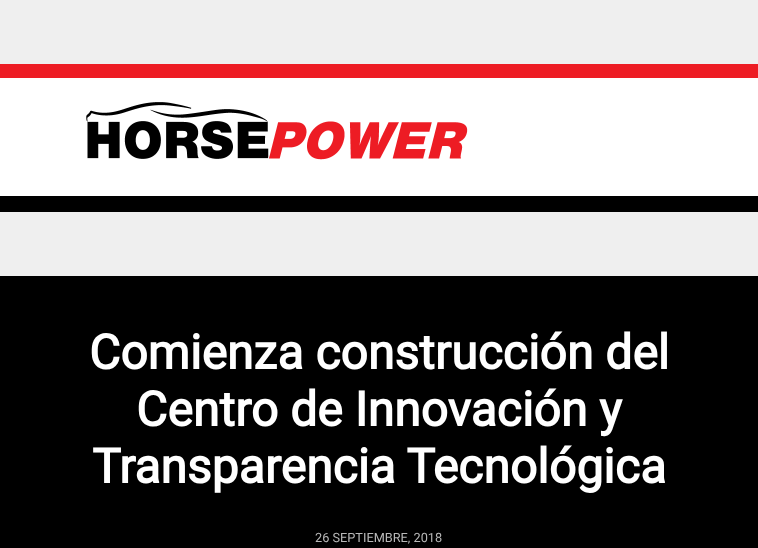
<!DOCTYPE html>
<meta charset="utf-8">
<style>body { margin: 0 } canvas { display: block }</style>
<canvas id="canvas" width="758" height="548"></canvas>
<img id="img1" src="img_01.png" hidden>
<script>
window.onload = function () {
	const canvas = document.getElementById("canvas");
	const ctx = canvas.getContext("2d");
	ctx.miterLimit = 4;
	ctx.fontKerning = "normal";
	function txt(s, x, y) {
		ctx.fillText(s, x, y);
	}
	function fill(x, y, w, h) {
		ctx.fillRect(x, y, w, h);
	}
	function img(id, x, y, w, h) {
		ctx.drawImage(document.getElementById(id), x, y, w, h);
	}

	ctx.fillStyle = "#EFEFEF";
	fill(0, 0, 758, 548);
	ctx.fillStyle = "#FFFFFF";
	fill(0, 78, 758, 118);
	ctx.fillStyle = "#ED1C24";
	fill(0, 64, 758, 14);
	img("img1", 86, 102, 382, 58);
	ctx.fillStyle = "#000000";
	fill(0, 196, 758, 16);
	fill(0, 276, 758, 272);
	ctx.font = "bold 48px Roboto";
	ctx.fillStyle = "#FFFFFF";
	txt("Comienza construcción del", 89, 369);
	txt("Centro de Innovación y", 136, 426);
	txt("Transparencia Tecnológica", 92, 483);
	ctx.font = "12.75px Roboto";
	ctx.fillStyle = "#B8B8B8";
	txt("26 SEPTIEMBRE, 2018", 315, 542);
};
</script>
